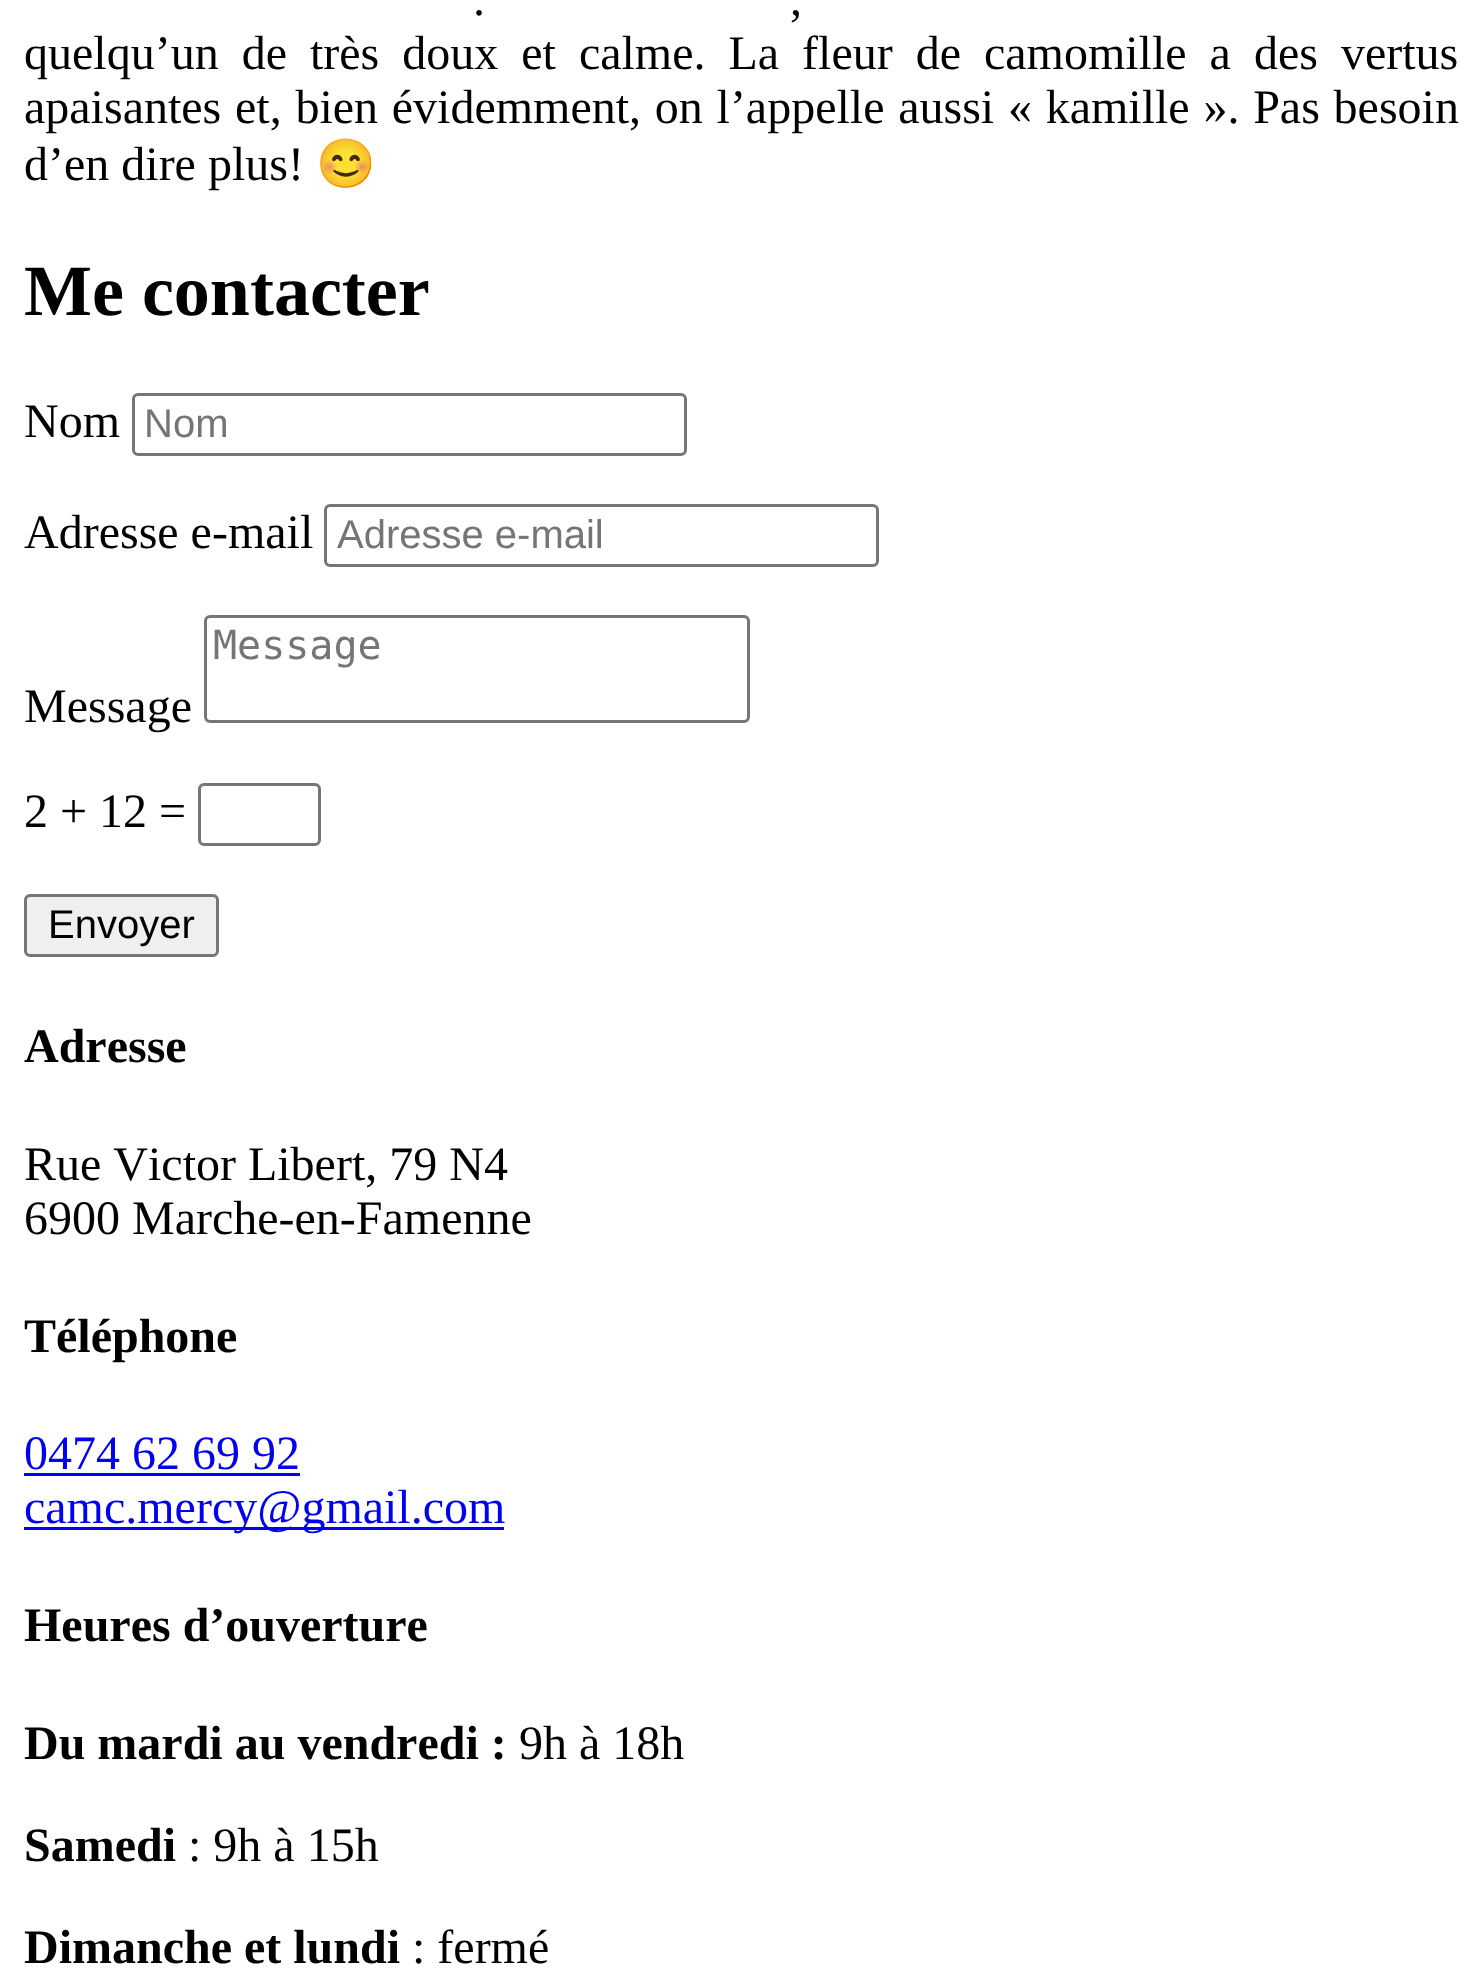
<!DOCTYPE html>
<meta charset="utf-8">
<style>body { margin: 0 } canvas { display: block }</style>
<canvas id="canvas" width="1481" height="1978"></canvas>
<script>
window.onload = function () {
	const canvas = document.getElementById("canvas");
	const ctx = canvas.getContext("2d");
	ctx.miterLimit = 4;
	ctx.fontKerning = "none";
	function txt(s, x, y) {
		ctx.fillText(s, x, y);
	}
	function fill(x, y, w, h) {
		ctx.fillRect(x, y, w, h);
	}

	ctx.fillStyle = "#FFFFFF";
	fill(0, 0, 1481, 1978);
	ctx.beginPath();
	ctx.roundRect(133.5, 394.5, 552, 60, 4.5);
	ctx.strokeStyle = "#767676";
	ctx.lineWidth = 3;
	ctx.stroke();
	ctx.beginPath();
	ctx.roundRect(325.5, 505.5, 552, 60, 4.5);
	ctx.stroke();
	ctx.beginPath();
	ctx.roundRect(205.5, 616.5, 543, 105, 4.5);
	ctx.stroke();
	ctx.beginPath();
	ctx.roundRect(199.5, 784.5, 120, 60, 4.5);
	ctx.stroke();
	ctx.fillStyle = "#EFEFEF";
	ctx.beginPath();
	ctx.roundRect(25.5, 895.5, 192, 60, 4.5);
	ctx.fill();
	ctx.stroke();
	ctx.fillStyle = "#0000EE";
	fill(24, 1473, 276, 3);
	fill(24, 1527, 480, 3);
	ctx.wordSpacing = "18px";
	ctx.font = "48px Liberation Serif";
	ctx.fillStyle = "#000000";
	txt(".", 473, 15);
	txt(",", 790, 15);
	ctx.wordSpacing = "11px";
	txt("quelqu’un de très doux et calme. La fleur de camomille a des vertus", 24, 69);
	ctx.wordSpacing = "1.75px";
	txt("apaisantes et, bien évidemment, on l’appelle aussi « kamille ». Pas besoin", 24, 123);
	ctx.wordSpacing = "0px";
	txt("d’en dire plus!", 24, 180);
	ctx.font = "48px Noto Color Emoji";
	txt("😊", 316, 180);
	ctx.font = "bold 72px Liberation Serif";
	txt("Me contacter", 24, 315);
	ctx.font = "48px Liberation Serif";
	txt("Nom", 24, 437);
	ctx.font = "40px Liberation Sans";
	ctx.fillStyle = "#757575";
	txt("Nom", 144, 437);
	ctx.font = "48px Liberation Serif";
	ctx.fillStyle = "#000000";
	txt("Adresse e-mail", 24, 548);
	ctx.font = "40px Liberation Sans";
	ctx.fillStyle = "#757575";
	txt("Adresse e-mail", 337, 548);
	ctx.font = "40px DejaVu Sans Mono";
	txt("Message", 213, 659);
	ctx.font = "48px Liberation Serif";
	ctx.fillStyle = "#000000";
	txt("Message", 24, 722);
	txt("2 + 12 =", 24, 827);
	ctx.font = "40px Liberation Sans";
	txt("Envoyer", 48, 938);
	ctx.font = "bold 48px Liberation Serif";
	txt("Adresse", 24, 1062);
	ctx.font = "48px Liberation Serif";
	txt("Rue Victor Libert, 79 N4", 24, 1180);
	txt("6900 Marche-en-Famenne", 24, 1234);
	ctx.font = "bold 48px Liberation Serif";
	txt("Téléphone", 24, 1352);
	ctx.font = "48px Liberation Serif";
	ctx.fillStyle = "#0000EE";
	txt("0474 62 69 92", 24, 1469);
	txt("camc.mercy@gmail.com", 24, 1523);
	ctx.font = "bold 48px Liberation Serif";
	ctx.fillStyle = "#000000";
	txt("Heures d’ouverture", 24, 1641);
	txt("Du mardi au vendredi :", 24, 1759);
	ctx.font = "48px Liberation Serif";
	txt("9h à 18h", 519, 1759);
	ctx.font = "bold 48px Liberation Serif";
	txt("Samedi", 24, 1861);
	ctx.font = "48px Liberation Serif";
	txt(": 9h à 15h", 188, 1861);
	ctx.font = "bold 48px Liberation Serif";
	txt("Dimanche et lundi", 24, 1963);
	ctx.font = "48px Liberation Serif";
	txt(": fermé", 412, 1963);
};
</script>
